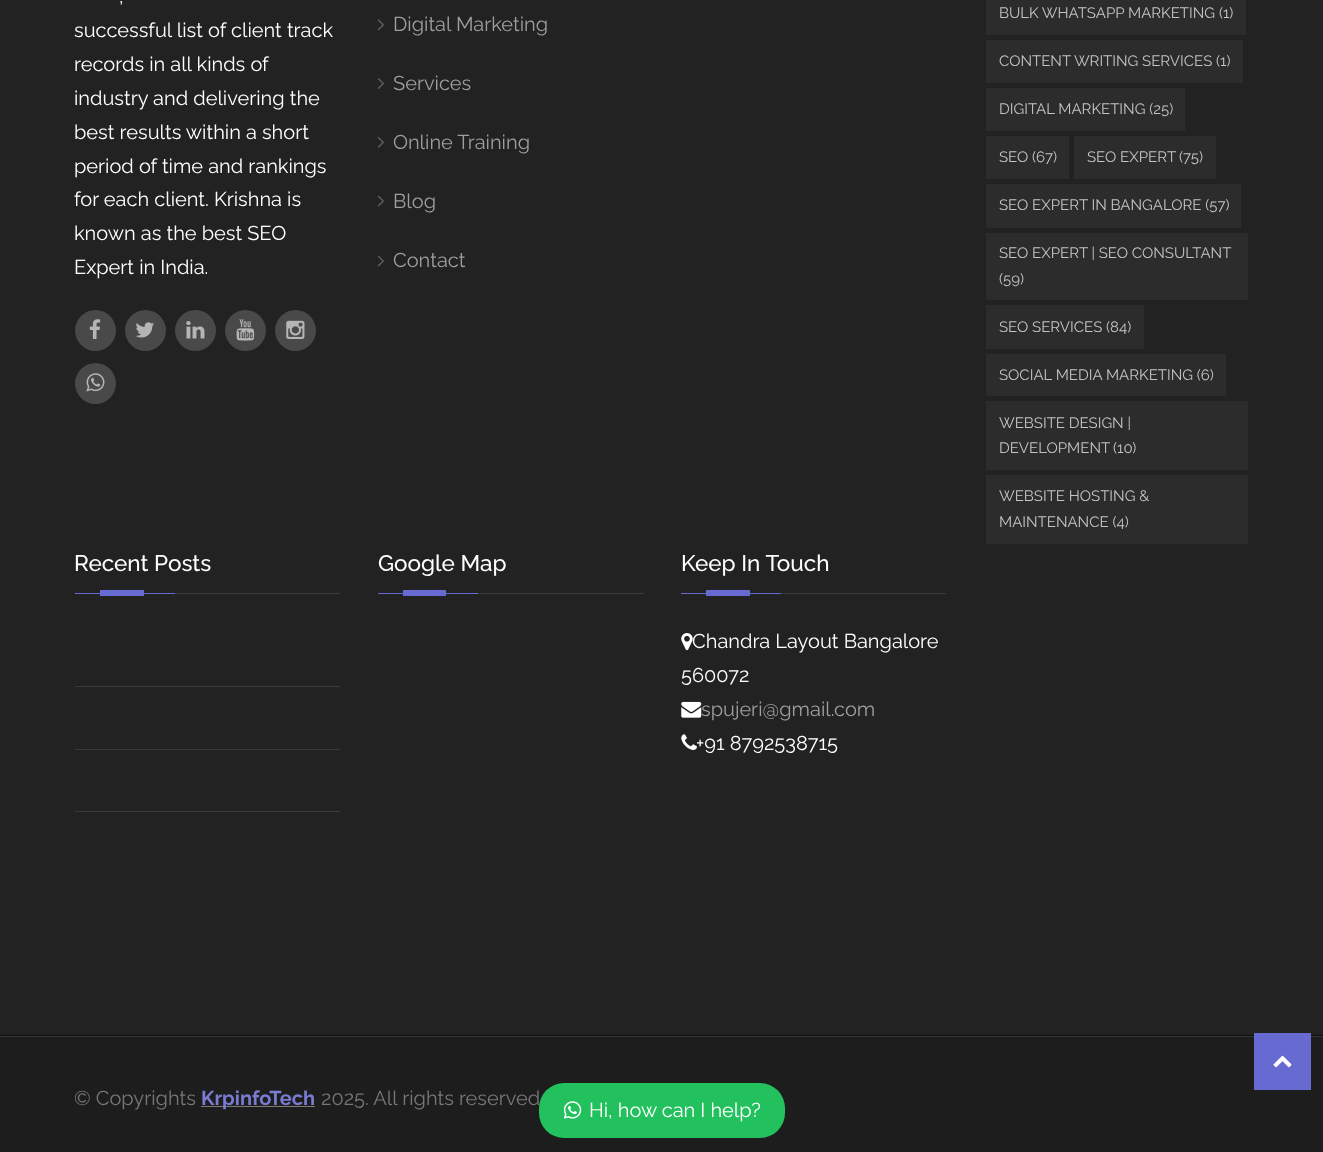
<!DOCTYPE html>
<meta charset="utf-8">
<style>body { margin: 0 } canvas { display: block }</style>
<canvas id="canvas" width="1323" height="1152"></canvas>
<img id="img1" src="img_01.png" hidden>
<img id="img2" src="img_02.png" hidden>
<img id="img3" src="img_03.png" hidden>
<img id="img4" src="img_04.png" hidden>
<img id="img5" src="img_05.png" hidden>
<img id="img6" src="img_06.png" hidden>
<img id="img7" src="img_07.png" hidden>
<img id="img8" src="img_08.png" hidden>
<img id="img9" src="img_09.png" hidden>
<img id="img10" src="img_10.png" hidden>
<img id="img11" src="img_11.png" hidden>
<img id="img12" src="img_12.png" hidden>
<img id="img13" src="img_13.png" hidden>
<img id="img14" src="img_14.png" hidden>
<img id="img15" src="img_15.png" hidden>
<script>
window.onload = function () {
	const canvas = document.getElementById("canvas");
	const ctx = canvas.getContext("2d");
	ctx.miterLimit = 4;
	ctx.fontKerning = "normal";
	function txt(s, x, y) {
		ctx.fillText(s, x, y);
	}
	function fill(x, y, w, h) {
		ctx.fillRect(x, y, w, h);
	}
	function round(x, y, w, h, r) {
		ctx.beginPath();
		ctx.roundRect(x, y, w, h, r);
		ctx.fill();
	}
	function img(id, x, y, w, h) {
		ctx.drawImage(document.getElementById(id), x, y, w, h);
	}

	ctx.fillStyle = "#222222";
	fill(0, 0, 1323, 1152);
	ctx.fillStyle = "#0F0F0F";
	fill(0, 1035, 1323, 1);
	ctx.fillStyle = "#494949";
	ctx.beginPath();
	ctx.arc(95.5, 330.5, 20.5, 0, Math.PI * 2);
	ctx.fill();
	img("img1", 89, 319, 12, 20);
	ctx.beginPath();
	ctx.arc(145.5, 330.5, 20.5, 0, Math.PI * 2);
	ctx.fill();
	img("img2", 135, 322, 19, 16);
	ctx.beginPath();
	ctx.arc(195.5, 330.5, 20.5, 0, Math.PI * 2);
	ctx.fill();
	img("img3", 186, 321, 19, 18);
	ctx.beginPath();
	ctx.arc(245.5, 330.5, 20.5, 0, Math.PI * 2);
	ctx.fill();
	img("img4", 236, 319, 19, 22);
	ctx.beginPath();
	ctx.arc(295.5, 330.5, 20.5, 0, Math.PI * 2);
	ctx.fill();
	img("img5", 286, 320, 19, 19);
	ctx.beginPath();
	ctx.arc(95.5, 383.5, 20.5, 0, Math.PI * 2);
	ctx.fill();
	img("img6", 86, 373, 19, 19);
	img("img7", 377, 19, 7, 12);
	img("img8", 377, 78, 7, 11);
	img("img9", 377, 136, 7, 12);
	img("img10", 377, 195, 7, 12);
	img("img10", 377, 255, 7, 12);
	ctx.fillStyle = "#2C2C2C";
	fill(986, 0, 260, 35);
	fill(986, 40, 257, 43);
	fill(986, 88, 199, 43);
	fill(986, 136, 83, 43);
	fill(1074, 136, 142, 43);
	fill(986, 184, 255, 44);
	fill(986, 233, 262, 67);
	fill(986, 305, 158, 44);
	fill(986, 354, 240, 42);
	fill(986, 401, 262, 69);
	fill(986, 475, 262, 69);
	ctx.fillStyle = "#3A3A3A";
	fill(175, 593, 165, 1);
	ctx.fillStyle = "#676AD1";
	fill(100, 590, 44, 6);
	fill(75, 593, 100, 1);
	ctx.fillStyle = "#3A3A3A";
	fill(75, 686, 265, 1);
	fill(75, 749, 265, 1);
	fill(75, 811, 265, 1);
	fill(478, 593, 166, 1);
	ctx.fillStyle = "#676AD1";
	fill(403, 590, 43, 6);
	fill(378, 593, 100, 1);
	ctx.fillStyle = "#3A3A3A";
	fill(781, 593, 165, 1);
	ctx.fillStyle = "#676AD1";
	fill(706, 590, 44, 6);
	fill(681, 593, 100, 1);
	img("img11", 681, 633, 12, 18);
	img("img12", 681, 701, 21, 17);
	img("img13", 681, 734, 16, 16);
	ctx.fillStyle = "#1D1D1D";
	fill(0, 1037, 1323, 115);
	ctx.fillStyle = "#363636";
	fill(0, 1036, 1323, 1);
	ctx.fillStyle = "#7C7C7C";
	fill(201, 1106, 114, 1);
	ctx.fillStyle = "#676AD1";
	fill(1254, 1033, 57, 57);
	img("img14", 1273, 1055, 19, 13);
	ctx.fillStyle = "#22C15E";
	round(539, 1083, 246, 55, 25);
	img("img15", 564, 1101, 18, 18);
	ctx.font = "20px Raleway";
	ctx.fillStyle = "#FFFFFF";
	txt(",", 119, 3);
	txt("successful list of client track", 74, 37);
	txt("records in all kinds of", 74, 71);
	txt("industry and delivering the", 74, 105);
	txt("best results within a short", 74, 139);
	txt("period of time and rankings", 74, 173);
	txt("for each client. Krishna is", 74, 206);
	txt("known as the best SEO", 74, 240);
	txt("Expert in India.", 74, 274);
	ctx.fillStyle = "#9E9E9E";
	txt("Digital Marketing", 393, 31);
	txt("Services", 393, 90);
	txt("Online Training", 393, 149);
	txt("Blog", 393, 208);
	txt("Contact", 393, 267);
	ctx.font = "15px Raleway";
	ctx.fillStyle = "#C4C4C4";
	txt("BULK WHATSAPP MARKETING (1)", 999, 18);
	txt("CONTENT WRITING SERVICES (1)", 999, 66);
	txt("DIGITAL MARKETING (25)", 999, 114);
	txt("SEO (67)", 999, 162);
	txt("SEO EXPERT", 1087, 162);
	txt("(75)", 1179, 162);
	txt("SEO EXPERT IN BANGALORE (57)", 999, 210);
	txt("SEO EXPERT | SEO CONSULTANT", 999, 258);
	txt("(59)", 999, 284);
	txt("SEO SERVICES (84)", 999, 332);
	txt("SOCIAL MEDIA MARKETING (6)", 999, 380);
	txt("WEBSITE DESIGN |", 999, 428);
	txt("DEVELOPMENT", 999, 453);
	txt("(10)", 1113, 453);
	txt("WEBSITE HOSTING &", 999, 501);
	txt("MAINTENANCE (4)", 999, 527);
	ctx.font = "500 22.5px Raleway";
	ctx.fillStyle = "#FFFFFF";
	txt("Recent Posts", 74, 571);
	txt("Google Map", 378, 571);
	txt("Keep In Touch", 681, 571);
	ctx.font = "20px Raleway";
	txt("Chandra Layout Bangalore", 692, 648);
	txt("560072", 681, 682);
	ctx.fillStyle = "#9E9E9E";
	txt("spujeri@gmail.com", 701, 716);
	ctx.fillStyle = "#FFFFFF";
	txt("+91 8792538715", 696, 750);
	ctx.fillStyle = "#777777";
	txt("© Copyrights", 74, 1105);
	ctx.font = "bold 20px Raleway";
	ctx.fillStyle = "#797CD1";
	txt("KrpinfoTech", 201, 1105);
	ctx.font = "20px Raleway";
	ctx.fillStyle = "#777777";
	txt("2025. All rights reserved", 321, 1105);
	ctx.fillStyle = "#FFFFFF";
	txt("Hi, how can I help?", 589, 1117);
};
</script>
